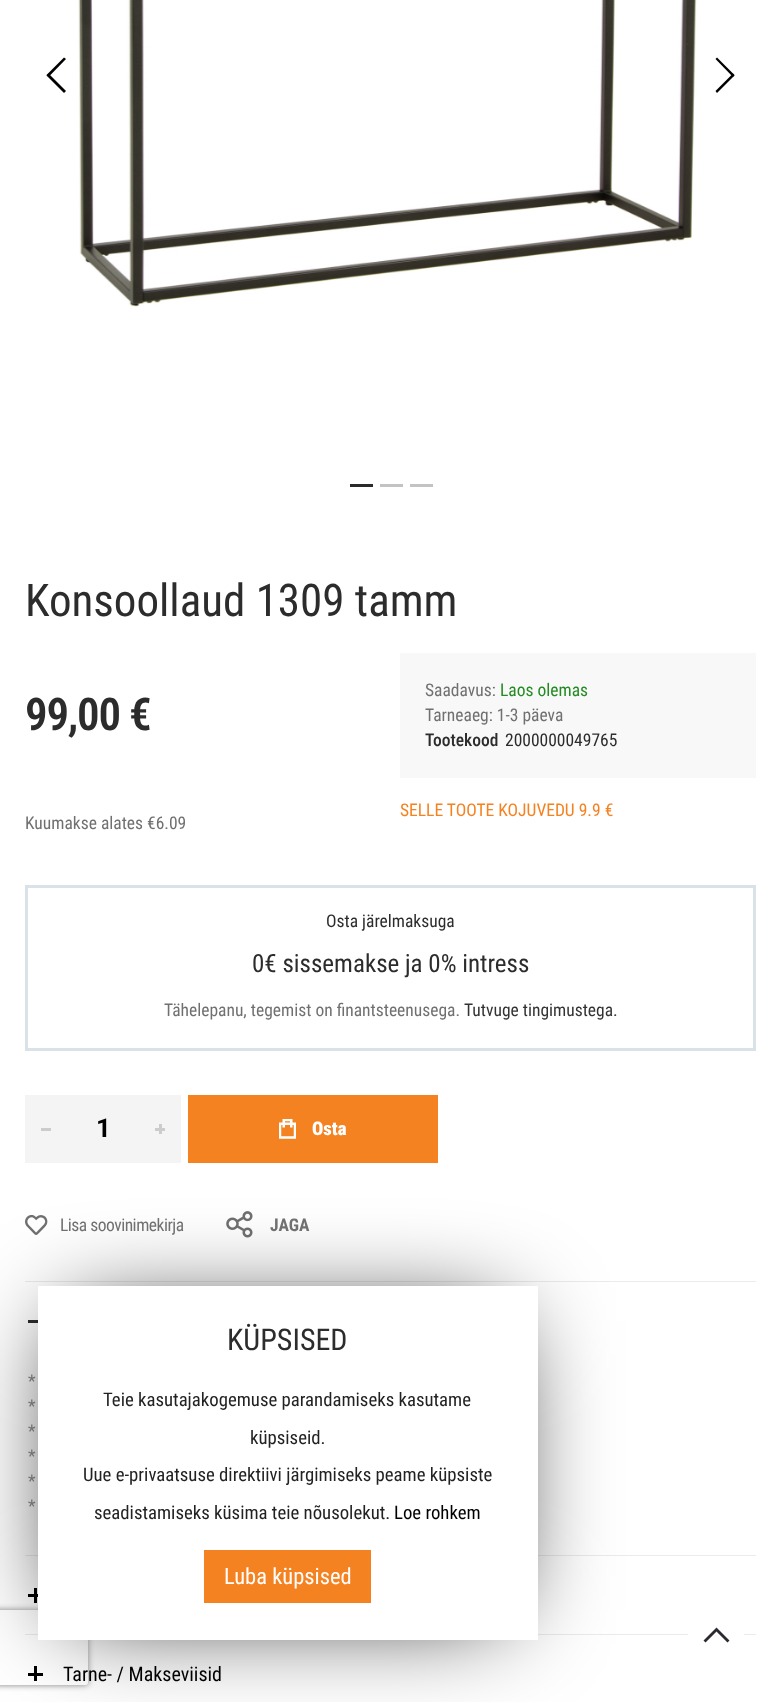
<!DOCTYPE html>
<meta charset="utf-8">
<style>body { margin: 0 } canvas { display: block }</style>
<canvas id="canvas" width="781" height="1702"></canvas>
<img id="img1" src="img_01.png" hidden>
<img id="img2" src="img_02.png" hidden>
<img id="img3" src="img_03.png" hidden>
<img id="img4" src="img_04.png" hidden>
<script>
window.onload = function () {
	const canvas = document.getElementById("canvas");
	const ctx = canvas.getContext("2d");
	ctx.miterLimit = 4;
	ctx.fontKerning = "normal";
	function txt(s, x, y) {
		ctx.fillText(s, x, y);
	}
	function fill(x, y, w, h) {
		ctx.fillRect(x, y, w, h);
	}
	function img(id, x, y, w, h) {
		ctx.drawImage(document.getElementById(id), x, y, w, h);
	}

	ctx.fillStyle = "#FFFFFF";
	fill(0, 0, 781, 1702);
	ctx.fillStyle = "#000000";
	ctx.beginPath();
	ctx.moveTo(64, 57.5);
	ctx.lineTo(66, 59);
	ctx.lineTo(48.5, 77);
	ctx.lineTo(46.5, 75);
	ctx.closePath();
	ctx.fill();
	ctx.beginPath();
	ctx.moveTo(46.5, 75.5);
	ctx.lineTo(48.5, 73.5);
	ctx.lineTo(66, 91);
	ctx.lineTo(64, 93);
	ctx.closePath();
	ctx.fill();
	img("img1", 78, 0, 619, 307);
	ctx.beginPath();
	ctx.moveTo(715.5, 59);
	ctx.lineTo(717, 57.5);
	ctx.lineTo(734.5, 75);
	ctx.lineTo(733, 77);
	ctx.closePath();
	ctx.fill();
	ctx.beginPath();
	ctx.moveTo(733, 73.5);
	ctx.lineTo(734.5, 75.5);
	ctx.lineTo(717, 93);
	ctx.lineTo(715.5, 91);
	ctx.closePath();
	ctx.fill();
	ctx.fillStyle = "#2A2A2A";
	fill(350, 484, 23, 3);
	ctx.fillStyle = "#C3C3C3";
	fill(380, 484, 23, 3);
	fill(410, 484, 23, 3);
	ctx.fillStyle = "#F8F8F8";
	fill(400, 653, 356, 125);
	ctx.strokeStyle = "#D8E2E7";
	ctx.lineWidth = 3;
	ctx.strokeRect(26.5, 886.5, 728, 163);
	ctx.fillStyle = "#F4F4F4";
	fill(25, 1095, 156, 68);
	ctx.fillStyle = "#CCCCCC";
	fill(41, 1128, 10, 3);
	fill(155, 1128, 10, 3);
	fill(159, 1124, 3, 10);
	ctx.fillStyle = "#F58220";
	fill(188, 1095, 250, 68);
	img("img2", 279, 1119, 17, 20);
	img("img3", 25, 1214, 23, 21);
	img("img4", 226, 1211, 27, 27);
	ctx.fillStyle = "#EBEBEB";
	fill(25, 1281, 731, 1);
	ctx.fillStyle = "#2D2D2D";
	fill(28, 1320, 15, 3);
	ctx.fillStyle = "#EBEBEB";
	fill(25, 1555, 731, 1);
	ctx.fillStyle = "#000000";
	fill(28, 1594, 15, 3);
	fill(34, 1588, 3, 15);
	ctx.fillStyle = "#EBEBEB";
	fill(25, 1634, 731, 1);
	ctx.fillStyle = "#000000";
	fill(28, 1673, 15, 3);
	fill(34, 1666, 3, 15);
	ctx.filter = "blur(51px)";
	ctx.beginPath();
	ctx.rect(68, 1321, 435, 289);
	ctx.fill();
	ctx.filter = "none";
	ctx.save();
	ctx.beginPath();
	ctx.moveTo(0, 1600);
	ctx.lineTo(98, 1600);
	ctx.lineTo(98, 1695);
	ctx.lineTo(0, 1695);
	ctx.closePath();
	ctx.moveTo(-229.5, 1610);
	ctx.lineTo(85.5, 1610);
	ctx.bezierCurveTo(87, 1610, 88, 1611, 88, 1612.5);
	ctx.lineTo(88, 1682.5);
	ctx.bezierCurveTo(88, 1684, 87, 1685, 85.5, 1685);
	ctx.lineTo(-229.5, 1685);
	ctx.bezierCurveTo(-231, 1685, -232, 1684, -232, 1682.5);
	ctx.lineTo(-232, 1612.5);
	ctx.bezierCurveTo(-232, 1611, -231, 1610, -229.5, 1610);
	ctx.closePath();
	ctx.clip("evenodd");
	ctx.fillStyle = "#808080";
	ctx.filter = "blur(3px)";
	ctx.beginPath();
	ctx.roundRect(-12, 1610, 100, 75, 2.5);
	ctx.fill();
	ctx.filter = "none";
	ctx.restore();
	ctx.fillStyle = "#FFFFFF";
	fill(38, 1286, 500, 354);
	ctx.fillStyle = "#F58220";
	fill(204, 1550, 167, 53);
	ctx.fillStyle = "#FFFFFF";
	fill(688, 1634, 56, 1);
	ctx.fillStyle = "#2C2930";
	ctx.beginPath();
	ctx.moveTo(716.5, 1627.5);
	ctx.lineTo(703.5, 1640.5);
	ctx.lineTo(705.5, 1642.5);
	ctx.lineTo(716.5, 1631.5);
	ctx.lineTo(727.5, 1642.5);
	ctx.lineTo(729.5, 1640.5);
	ctx.closePath();
	ctx.fill();
	ctx.font = "45px Roboto Condensed";
	ctx.fillStyle = "#2C2C2C";
	txt("Konsoollaud 1309 tamm", 25, 616);
	ctx.letterSpacing = "-1.25px";
	ctx.font = "600 45px Roboto Condensed";
	txt("99,00 €", 25, 730);
	ctx.letterSpacing = "0px";
	ctx.font = "17.5px Roboto Condensed";
	ctx.fillStyle = "#707070";
	txt("Saadavus:", 425, 696);
	ctx.fillStyle = "#228B22";
	txt("Laos olemas", 500, 696);
	ctx.fillStyle = "#707070";
	txt("Tarneaeg: 1-3 päeva", 425, 721);
	ctx.font = "500 17.5px Roboto Condensed";
	ctx.fillStyle = "#2C2C2C";
	txt("Tootekood", 425, 746);
	ctx.font = "17.5px Roboto Condensed";
	txt("2000000049765", 505, 746);
	ctx.fillStyle = "#F58220";
	txt("SELLE TOOTE KOJUVEDU 9.9 €", 400, 816);
	ctx.fillStyle = "#707070";
	txt("Kuumakse alates €6.09", 25, 829);
	ctx.fillStyle = "#2C2C2C";
	txt("Osta järelmaksuga", 326, 927);
	ctx.font = "25px Roboto Condensed";
	txt("0€ sissemakse ja 0% intress", 252, 972);
	ctx.font = "17.5px Roboto Condensed";
	ctx.fillStyle = "#707070";
	txt("Tähelepanu, tegemist on finantsteenusega.", 164, 1016);
	ctx.fillStyle = "#333333";
	txt("Tutvuge tingimustega.", 464, 1016);
	ctx.font = "bold 26px Roboto";
	ctx.fillStyle = "#000000";
	txt("1", 96, 1137);
	ctx.font = "900 18.75px Roboto Condensed";
	ctx.fillStyle = "#FFFFFF";
	txt("Osta", 312, 1135);
	ctx.letterSpacing = "-0.5px";
	ctx.font = "17.5px Roboto Condensed";
	ctx.fillStyle = "#707070";
	txt("Lisa soovinimekirja", 60, 1231);
	ctx.letterSpacing = "0px";
	ctx.font = "bold 17.5px Roboto Condensed";
	txt("JAGA", 270, 1231);
	ctx.font = "30px Roboto Condensed";
	ctx.fillStyle = "#2C2C2C";
	txt("KÜPSISED", 227, 1350);
	ctx.font = "18.75px Roboto Condensed";
	ctx.fillStyle = "#222222";
	txt("Teie kasutajakogemuse parandamiseks kasutame", 103, 1406);
	txt("küpsiseid.", 250, 1444);
	txt("Uue e-privaatsuse direktiivi järgimiseks peame küpsiste", 83, 1481);
	txt("seadistamiseks küsima teie nõusolekut.", 94, 1519);
	ctx.fillStyle = "#000000";
	txt("Loe rohkem", 394, 1519);
	ctx.font = "22.5px Roboto Condensed";
	ctx.fillStyle = "#FFFFFF";
	txt("Luba küpsised", 224, 1584);
	ctx.font = "17.5px Roboto Condensed";
	ctx.fillStyle = "#707070";
	txt("*", 28, 1387);
	txt("*", 28, 1412);
	txt("*", 28, 1437);
	txt("*", 28, 1462);
	txt("*", 28, 1487);
	txt("*", 28, 1512);
	ctx.font = "20px Roboto Condensed";
	ctx.fillStyle = "#000000";
	txt("Tarne- / Makseviisid", 63, 1681);
};
</script>
